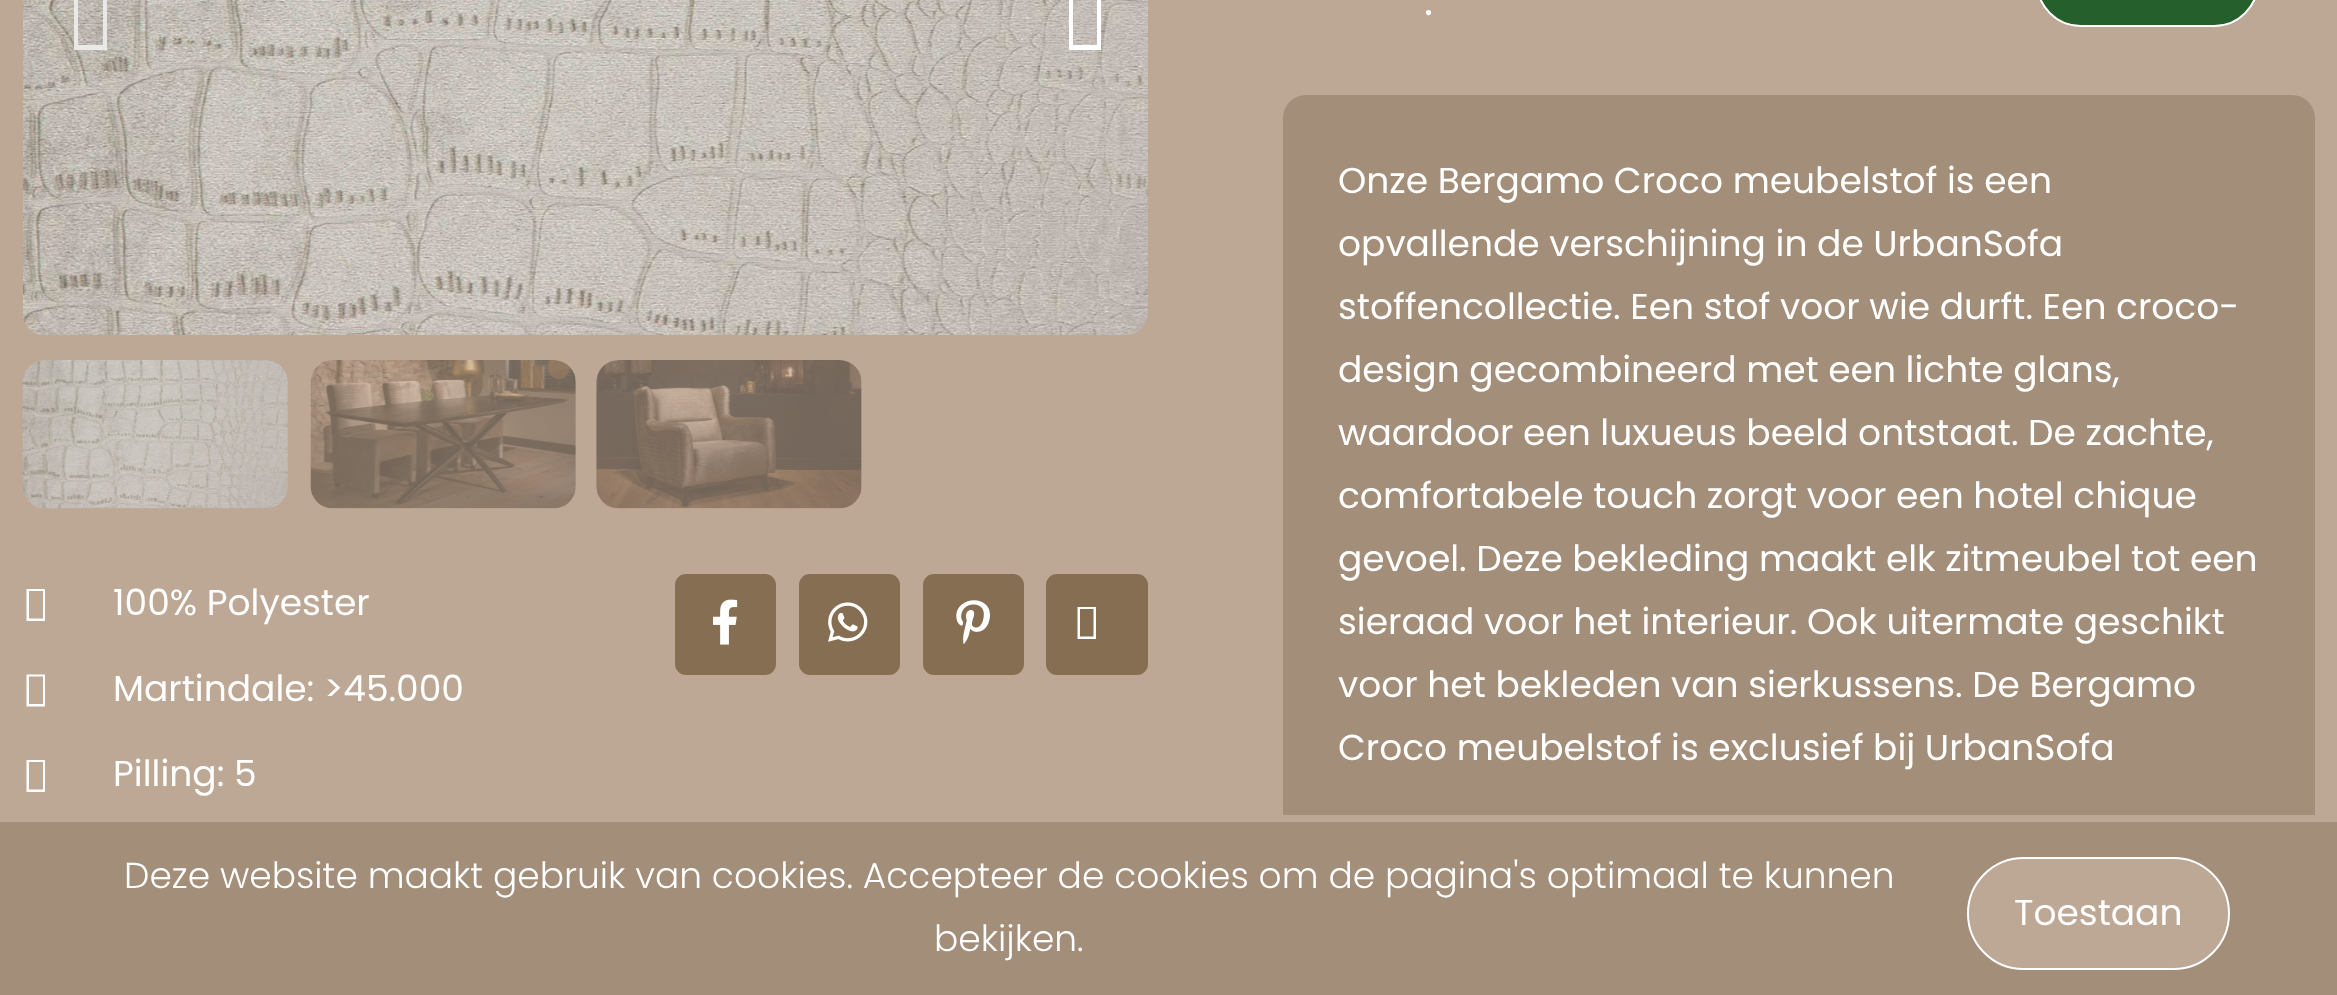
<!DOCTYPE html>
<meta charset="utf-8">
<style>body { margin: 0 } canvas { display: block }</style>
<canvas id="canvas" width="2337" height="995"></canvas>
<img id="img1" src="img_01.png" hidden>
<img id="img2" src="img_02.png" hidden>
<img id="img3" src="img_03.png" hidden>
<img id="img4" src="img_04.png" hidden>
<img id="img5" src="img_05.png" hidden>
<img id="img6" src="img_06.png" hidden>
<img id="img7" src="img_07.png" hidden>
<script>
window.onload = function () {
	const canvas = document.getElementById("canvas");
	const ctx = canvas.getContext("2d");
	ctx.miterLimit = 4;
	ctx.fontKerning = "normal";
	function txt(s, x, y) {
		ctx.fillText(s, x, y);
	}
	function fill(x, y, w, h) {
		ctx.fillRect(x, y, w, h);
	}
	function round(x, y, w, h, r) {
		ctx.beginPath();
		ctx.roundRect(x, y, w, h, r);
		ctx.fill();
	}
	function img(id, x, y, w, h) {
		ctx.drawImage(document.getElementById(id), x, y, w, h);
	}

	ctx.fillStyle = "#BDA896";
	fill(0, 0, 2337, 995);
	img("img1", 23, 0, 1125, 335);
	ctx.fillStyle = "rgba(238, 238, 238, 0.9)";
	ctx.beginPath();
	ctx.moveTo(74, 50);
	ctx.lineTo(74, -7);
	ctx.lineTo(107, -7);
	ctx.lineTo(107, 50);
	ctx.closePath();
	ctx.moveTo(78, 45);
	ctx.lineTo(103, 45);
	ctx.lineTo(103, -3);
	ctx.lineTo(78, -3);
	ctx.closePath();
	ctx.fill();
	ctx.fillStyle = "#FFFFFF";
	ctx.beginPath();
	ctx.moveTo(1069, 50);
	ctx.lineTo(1069, -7);
	ctx.lineTo(1101, -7);
	ctx.lineTo(1101, 50);
	ctx.closePath();
	ctx.moveTo(1073, 45);
	ctx.lineTo(1097, 45);
	ctx.lineTo(1097, -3);
	ctx.lineTo(1073, -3);
	ctx.closePath();
	ctx.fill();
	img("img2", 22, 360, 266, 149);
	img("img3", 310, 360, 266, 149);
	img("img4", 596, 360, 266, 149);
	ctx.beginPath();
	ctx.moveTo(26.5, 621);
	ctx.lineTo(26.5, 589);
	ctx.lineTo(45, 589);
	ctx.lineTo(45, 621);
	ctx.closePath();
	ctx.moveTo(29, 618.5);
	ctx.lineTo(43, 618.5);
	ctx.lineTo(43, 591);
	ctx.lineTo(29, 591);
	ctx.closePath();
	ctx.fill();
	ctx.beginPath();
	ctx.moveTo(26.5, 706.5);
	ctx.lineTo(26.5, 674.5);
	ctx.lineTo(45, 674.5);
	ctx.lineTo(45, 706.5);
	ctx.closePath();
	ctx.moveTo(29, 704);
	ctx.lineTo(43, 704);
	ctx.lineTo(43, 676.5);
	ctx.lineTo(29, 676.5);
	ctx.closePath();
	ctx.fill();
	ctx.beginPath();
	ctx.moveTo(26.5, 792);
	ctx.lineTo(26.5, 760);
	ctx.lineTo(45, 760);
	ctx.lineTo(45, 792);
	ctx.closePath();
	ctx.moveTo(29, 789.5);
	ctx.lineTo(43, 789.5);
	ctx.lineTo(43, 762);
	ctx.lineTo(29, 762);
	ctx.closePath();
	ctx.fill();
	ctx.fillStyle = "#866E52";
	round(675, 574, 101, 101, 11);
	img("img5", 713, 599, 25, 46);
	round(799, 574, 101, 101, 11);
	img("img6", 828, 602, 40, 40);
	round(923, 574, 101, 101, 11);
	img("img7", 956, 600, 34, 44);
	round(1046, 574, 102, 101, 11);
	ctx.fillStyle = "#FFFFFF";
	ctx.beginPath();
	ctx.moveTo(1077.5, 639);
	ctx.lineTo(1077.5, 607);
	ctx.lineTo(1096, 607);
	ctx.lineTo(1096, 639);
	ctx.closePath();
	ctx.moveTo(1080, 636.5);
	ctx.lineTo(1093.5, 636.5);
	ctx.lineTo(1093.5, 609);
	ctx.lineTo(1080, 609);
	ctx.closePath();
	ctx.fill();
	ctx.fillStyle = "#255F2C";
	ctx.beginPath();
	ctx.roundRect(2037, -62, 221, 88, 59.5);
	ctx.fill();
	ctx.strokeStyle = "#FFFFFF";
	ctx.lineWidth = 2;
	ctx.stroke();
	ctx.fillStyle = "#A38E7A";
	round(1283, 95, 1032, 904, 23);
	fill(0, 822, 2337, 173);
	ctx.fillStyle = "#BDA896";
	fill(1283, 815, 1032, 7);
	ctx.beginPath();
	ctx.roundRect(1968, 858, 261, 111, 55.5);
	ctx.fill();
	ctx.stroke();
	ctx.font = "36px Poppins";
	ctx.fillStyle = "#FFFFFF";
	txt("100% Polyester", 113, 615);
	txt("Martindale: >45.000", 113, 701);
	txt("Pilling: 5", 113, 786);
	ctx.font = "43px Poppins";
	txt(".", 1424, 15);
	ctx.font = "36px Poppins";
	txt("Onze Bergamo Croco meubelstof is een", 1338, 193);
	txt("opvallende verschijning in de UrbanSofa", 1338, 256);
	txt("stoffencollectie. Een stof voor wie durft. Een croco-", 1338, 319);
	txt("design gecombineerd met een lichte glans,", 1338, 382);
	txt("waardoor een luxueus beeld ontstaat. De zachte,", 1338, 445);
	txt("comfortabele touch zorgt voor een hotel chique", 1338, 508);
	txt("gevoel. Deze bekleding maakt elk zitmeubel tot een", 1338, 571);
	txt("sieraad voor het interieur. Ook uitermate geschikt", 1338, 634);
	txt("voor het bekleden van sierkussens. De Bergamo", 1338, 697);
	txt("Croco meubelstof is exclusief bij UrbanSofa", 1338, 760);
	ctx.font = "300 36px Poppins";
	txt("Deze website maakt gebruik van cookies. Accepteer de cookies om de pagina's optimaal te kunnen", 124, 888);
	txt("bekijken.", 934, 951);
	ctx.font = "36px Poppins";
	txt("Toestaan", 2014, 925);
};
</script>
